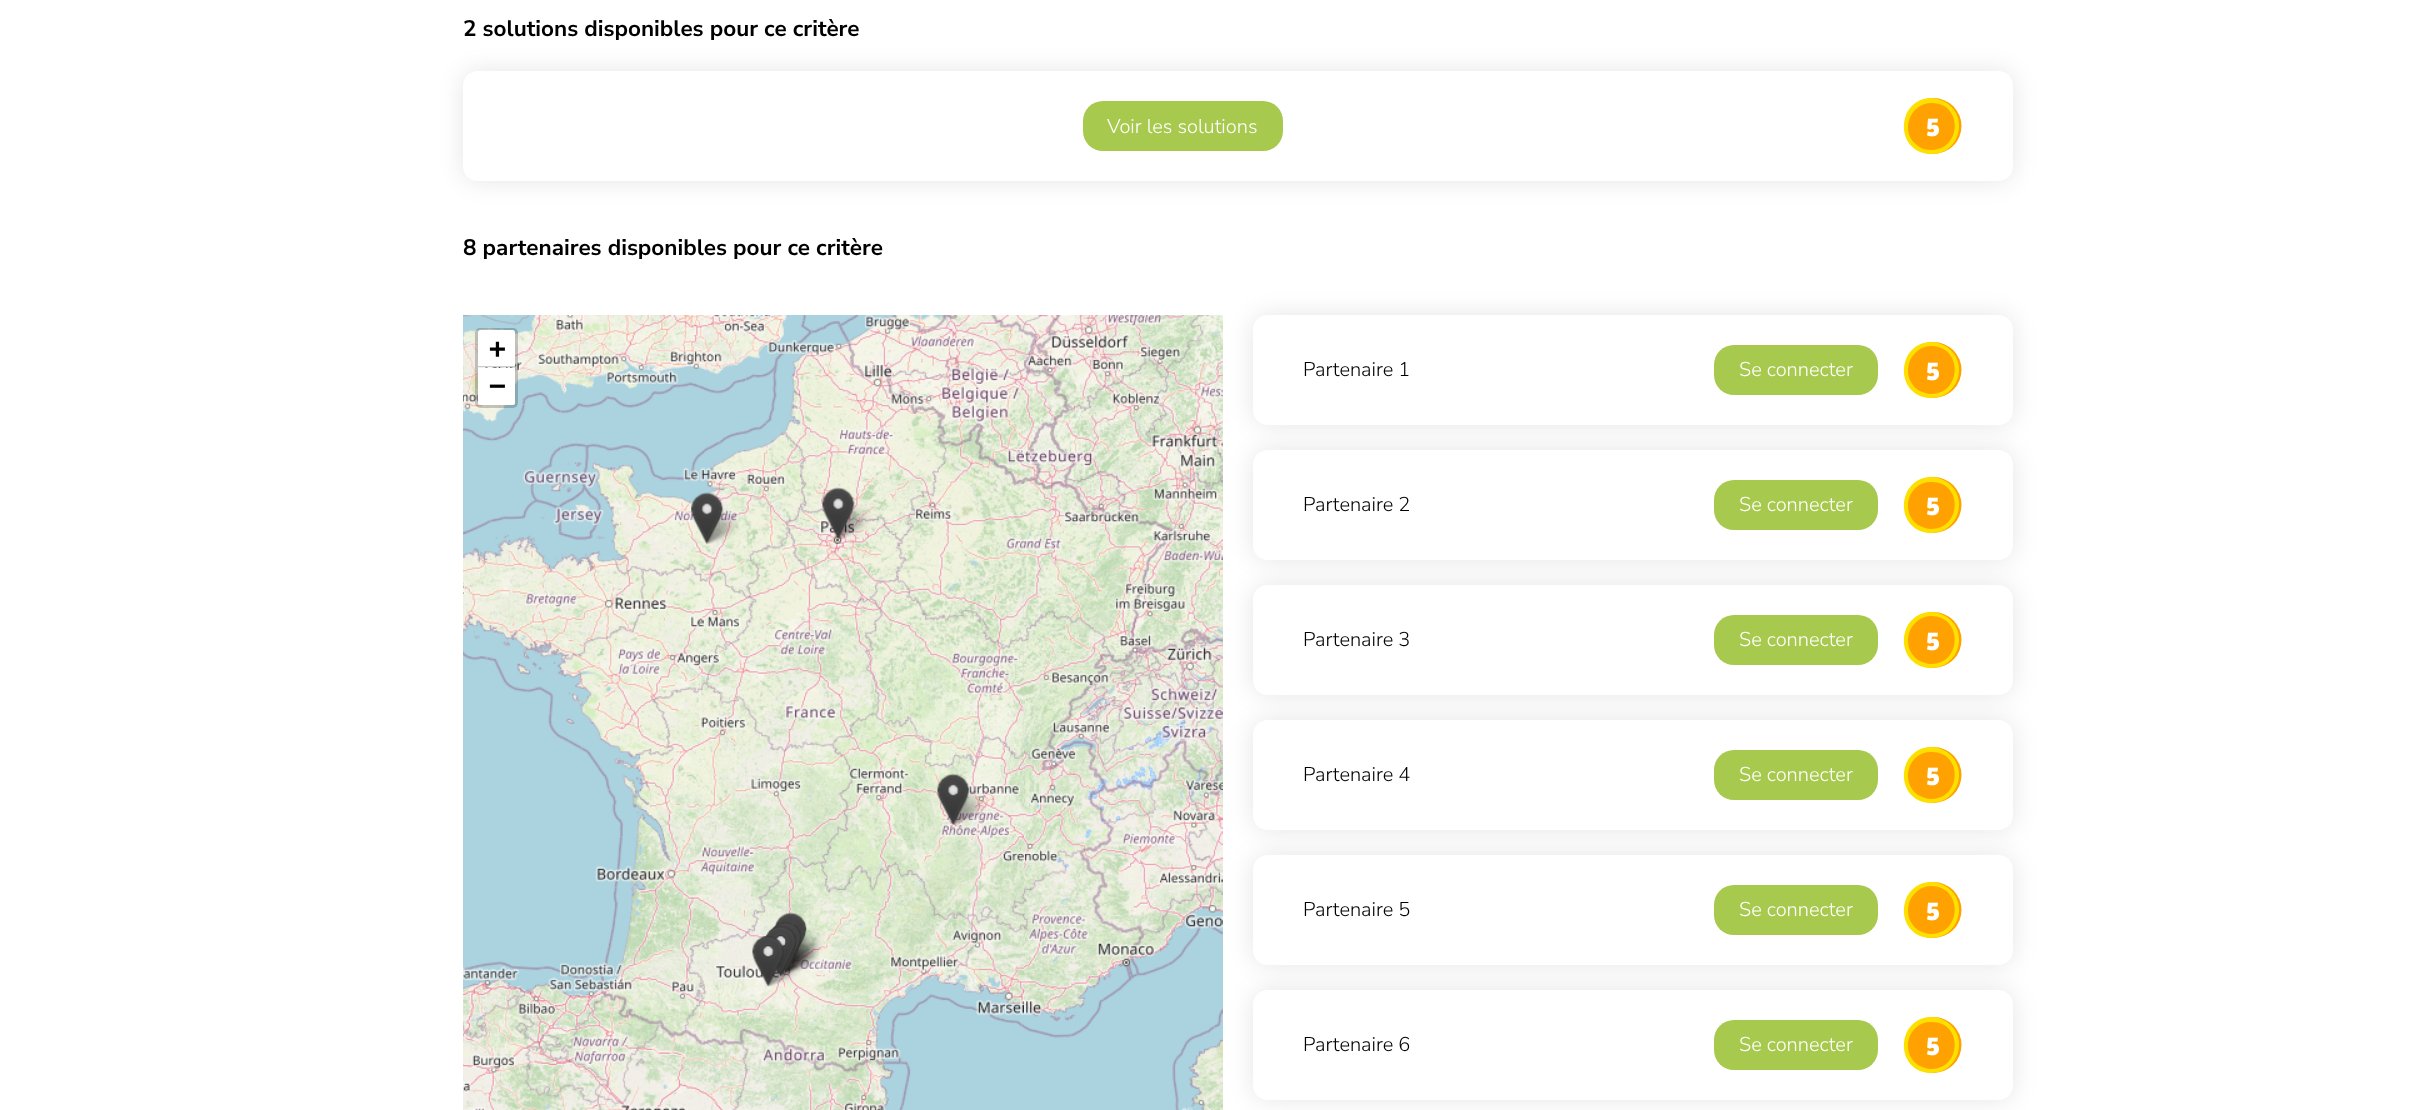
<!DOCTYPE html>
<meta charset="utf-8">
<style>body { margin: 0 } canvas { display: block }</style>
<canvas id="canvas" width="2424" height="1110"></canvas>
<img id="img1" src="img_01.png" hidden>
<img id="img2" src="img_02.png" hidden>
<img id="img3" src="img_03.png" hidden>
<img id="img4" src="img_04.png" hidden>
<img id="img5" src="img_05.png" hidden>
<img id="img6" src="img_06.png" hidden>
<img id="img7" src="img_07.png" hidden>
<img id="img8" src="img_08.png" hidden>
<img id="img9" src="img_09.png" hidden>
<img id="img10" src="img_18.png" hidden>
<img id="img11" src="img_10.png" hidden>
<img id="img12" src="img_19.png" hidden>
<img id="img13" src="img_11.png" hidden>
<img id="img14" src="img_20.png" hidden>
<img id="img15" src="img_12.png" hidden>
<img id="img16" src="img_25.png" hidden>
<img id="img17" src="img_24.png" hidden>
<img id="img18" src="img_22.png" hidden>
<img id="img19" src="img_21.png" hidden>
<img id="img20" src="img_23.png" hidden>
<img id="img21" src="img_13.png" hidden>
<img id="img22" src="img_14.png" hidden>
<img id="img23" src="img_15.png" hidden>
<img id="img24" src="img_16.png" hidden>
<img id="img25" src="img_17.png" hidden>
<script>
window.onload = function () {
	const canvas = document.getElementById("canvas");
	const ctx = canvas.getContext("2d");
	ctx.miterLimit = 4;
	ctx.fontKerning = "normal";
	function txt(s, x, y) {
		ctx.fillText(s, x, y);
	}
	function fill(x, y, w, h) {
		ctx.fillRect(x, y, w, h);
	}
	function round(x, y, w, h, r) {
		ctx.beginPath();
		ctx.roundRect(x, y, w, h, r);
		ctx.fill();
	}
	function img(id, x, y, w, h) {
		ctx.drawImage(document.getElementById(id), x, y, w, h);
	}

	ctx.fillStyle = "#FFFFFF";
	fill(0, 0, 2424, 1110);
	ctx.save();
	ctx.beginPath();
	ctx.moveTo(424, 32);
	ctx.lineTo(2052, 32);
	ctx.lineTo(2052, 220);
	ctx.lineTo(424, 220);
	ctx.closePath();
	ctx.moveTo(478, 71);
	ctx.lineTo(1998, 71);
	ctx.bezierCurveTo(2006.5, 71, 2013, 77.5, 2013, 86);
	ctx.lineTo(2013, 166);
	ctx.bezierCurveTo(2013, 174.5, 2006.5, 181, 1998, 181);
	ctx.lineTo(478, 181);
	ctx.bezierCurveTo(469.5, 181, 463, 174.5, 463, 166);
	ctx.lineTo(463, 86);
	ctx.bezierCurveTo(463, 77.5, 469.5, 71, 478, 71);
	ctx.closePath();
	ctx.clip("evenodd");
	ctx.fillStyle = "rgba(0, 0, 0, 0.1)";
	ctx.filter = "blur(12.5px)";
	ctx.beginPath();
	ctx.roundRect(463, 71, 1550, 110, 15);
	ctx.fill();
	ctx.filter = "none";
	ctx.restore();
	ctx.fillStyle = "#A7C94D";
	round(1083, 101, 200, 50, 20);
	ctx.fillStyle = "#FFA100";
	ctx.beginPath();
	ctx.arc(1933.5, 126, 28, 0, Math.PI * 2);
	ctx.fill();
	ctx.beginPath();
	ctx.arc(1931.5, 126.5, 25.5, 0, Math.PI * 2);
	ctx.fill();
	ctx.fillStyle = "#FDDF00";
	ctx.beginPath();
	ctx.moveTo(1932, 103);
	ctx.bezierCurveTo(1963, 103, 1962, 150, 1931, 150);
	ctx.bezierCurveTo(1927, 150, 1922, 149, 1918, 146);
	ctx.bezierCurveTo(1899, 133, 1909, 103, 1932, 103);
	ctx.moveTo(1932, 98);
	ctx.bezierCurveTo(1896, 98, 1894, 152, 1930, 154);
	ctx.bezierCurveTo(1958, 156, 1970, 119, 1947, 103);
	ctx.bezierCurveTo(1942, 100, 1937, 99, 1932, 98);
	ctx.closePath();
	ctx.fill();
	ctx.fillStyle = "#DDDDDD";
	fill(704, 534, 320, 320);
	img("img1", 463, 315, 241, 219);
	img("img2", 704, 315, 320, 219);
	ctx.save();
	ctx.beginPath();
	ctx.moveTo(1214, 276);
	ctx.lineTo(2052, 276);
	ctx.lineTo(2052, 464);
	ctx.lineTo(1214, 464);
	ctx.closePath();
	ctx.moveTo(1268, 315);
	ctx.lineTo(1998, 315);
	ctx.bezierCurveTo(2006.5, 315, 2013, 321.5, 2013, 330);
	ctx.lineTo(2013, 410);
	ctx.bezierCurveTo(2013, 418.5, 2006.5, 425, 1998, 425);
	ctx.lineTo(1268, 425);
	ctx.bezierCurveTo(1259.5, 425, 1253, 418.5, 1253, 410);
	ctx.lineTo(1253, 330);
	ctx.bezierCurveTo(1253, 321.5, 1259.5, 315, 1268, 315);
	ctx.closePath();
	ctx.clip("evenodd");
	ctx.fillStyle = "rgba(0, 0, 0, 0.1)";
	ctx.filter = "blur(12.5px)";
	ctx.beginPath();
	ctx.roundRect(1253, 315, 760, 110, 15);
	ctx.fill();
	ctx.filter = "none";
	ctx.restore();
	ctx.save();
	ctx.beginPath();
	ctx.moveTo(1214, 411);
	ctx.lineTo(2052, 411);
	ctx.lineTo(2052, 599);
	ctx.lineTo(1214, 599);
	ctx.closePath();
	ctx.moveTo(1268, 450);
	ctx.lineTo(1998, 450);
	ctx.bezierCurveTo(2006.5, 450, 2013, 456.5, 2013, 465);
	ctx.lineTo(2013, 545);
	ctx.bezierCurveTo(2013, 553.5, 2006.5, 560, 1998, 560);
	ctx.lineTo(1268, 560);
	ctx.bezierCurveTo(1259.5, 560, 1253, 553.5, 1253, 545);
	ctx.lineTo(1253, 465);
	ctx.bezierCurveTo(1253, 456.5, 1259.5, 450, 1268, 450);
	ctx.closePath();
	ctx.clip("evenodd");
	ctx.fillStyle = "rgba(0, 0, 0, 0.1)";
	ctx.filter = "blur(12.5px)";
	ctx.beginPath();
	ctx.roundRect(1253, 450, 760, 110, 15);
	ctx.fill();
	ctx.filter = "none";
	ctx.restore();
	img("img3", 1024, 315, 199, 219);
	img("img4", 463, 534, 241, 320);
	img("img5", 704, 534, 320, 320);
	ctx.save();
	ctx.beginPath();
	ctx.moveTo(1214, 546);
	ctx.lineTo(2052, 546);
	ctx.lineTo(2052, 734);
	ctx.lineTo(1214, 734);
	ctx.closePath();
	ctx.moveTo(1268, 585);
	ctx.lineTo(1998, 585);
	ctx.bezierCurveTo(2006.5, 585, 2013, 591.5, 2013, 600);
	ctx.lineTo(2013, 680);
	ctx.bezierCurveTo(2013, 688.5, 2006.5, 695, 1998, 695);
	ctx.lineTo(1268, 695);
	ctx.bezierCurveTo(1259.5, 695, 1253, 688.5, 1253, 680);
	ctx.lineTo(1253, 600);
	ctx.bezierCurveTo(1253, 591.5, 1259.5, 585, 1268, 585);
	ctx.closePath();
	ctx.clip("evenodd");
	ctx.fillStyle = "rgba(0, 0, 0, 0.1)";
	ctx.filter = "blur(12.5px)";
	ctx.beginPath();
	ctx.roundRect(1253, 585, 760, 110, 15);
	ctx.fill();
	ctx.filter = "none";
	ctx.restore();
	ctx.save();
	ctx.beginPath();
	ctx.moveTo(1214, 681);
	ctx.lineTo(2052, 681);
	ctx.lineTo(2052, 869);
	ctx.lineTo(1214, 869);
	ctx.closePath();
	ctx.moveTo(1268, 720);
	ctx.lineTo(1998, 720);
	ctx.bezierCurveTo(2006.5, 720, 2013, 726.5, 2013, 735);
	ctx.lineTo(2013, 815);
	ctx.bezierCurveTo(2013, 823.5, 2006.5, 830, 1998, 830);
	ctx.lineTo(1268, 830);
	ctx.bezierCurveTo(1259.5, 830, 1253, 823.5, 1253, 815);
	ctx.lineTo(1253, 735);
	ctx.bezierCurveTo(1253, 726.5, 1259.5, 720, 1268, 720);
	ctx.closePath();
	ctx.clip("evenodd");
	ctx.fillStyle = "rgba(0, 0, 0, 0.1)";
	ctx.filter = "blur(12.5px)";
	ctx.beginPath();
	ctx.roundRect(1253, 720, 760, 110, 15);
	ctx.fill();
	ctx.filter = "none";
	ctx.restore();
	ctx.save();
	ctx.beginPath();
	ctx.moveTo(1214, 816);
	ctx.lineTo(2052, 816);
	ctx.lineTo(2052, 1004);
	ctx.lineTo(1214, 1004);
	ctx.closePath();
	ctx.moveTo(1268, 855);
	ctx.lineTo(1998, 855);
	ctx.bezierCurveTo(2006.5, 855, 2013, 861.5, 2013, 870);
	ctx.lineTo(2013, 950);
	ctx.bezierCurveTo(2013, 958.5, 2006.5, 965, 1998, 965);
	ctx.lineTo(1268, 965);
	ctx.bezierCurveTo(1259.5, 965, 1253, 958.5, 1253, 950);
	ctx.lineTo(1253, 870);
	ctx.bezierCurveTo(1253, 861.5, 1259.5, 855, 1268, 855);
	ctx.closePath();
	ctx.clip("evenodd");
	ctx.fillStyle = "rgba(0, 0, 0, 0.1)";
	ctx.filter = "blur(12.5px)";
	ctx.beginPath();
	ctx.roundRect(1253, 855, 760, 110, 15);
	ctx.fill();
	ctx.filter = "none";
	ctx.restore();
	img("img6", 1024, 534, 199, 320);
	img("img7", 463, 854, 241, 256);
	img("img8", 704, 854, 320, 256);
	ctx.save();
	ctx.beginPath();
	ctx.moveTo(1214, 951);
	ctx.lineTo(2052, 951);
	ctx.lineTo(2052, 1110);
	ctx.lineTo(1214, 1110);
	ctx.closePath();
	ctx.moveTo(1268, 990);
	ctx.lineTo(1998, 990);
	ctx.bezierCurveTo(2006.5, 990, 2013, 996.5, 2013, 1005);
	ctx.lineTo(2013, 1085);
	ctx.bezierCurveTo(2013, 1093.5, 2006.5, 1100, 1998, 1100);
	ctx.lineTo(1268, 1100);
	ctx.bezierCurveTo(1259.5, 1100, 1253, 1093.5, 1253, 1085);
	ctx.lineTo(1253, 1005);
	ctx.bezierCurveTo(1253, 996.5, 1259.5, 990, 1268, 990);
	ctx.closePath();
	ctx.clip("evenodd");
	ctx.fillStyle = "rgba(0, 0, 0, 0.1)";
	ctx.filter = "blur(12.5px)";
	ctx.beginPath();
	ctx.roundRect(1253, 990, 760, 110, 15);
	ctx.fill();
	ctx.filter = "none";
	ctx.restore();
	img("img9", 1024, 854, 199, 256);
	img("img10", 702, 508, 38, 36);
	img("img11", 691, 492, 33, 53);
	img("img12", 834, 503, 37, 36);
	img("img13", 822, 487, 33, 52);
	img("img14", 948, 790, 38, 36);
	img("img15", 937, 773, 33, 53);
	img("img16", 764, 954, 37, 33);
	img("img17", 777, 942, 37, 35);
	img("img18", 783, 938, 36, 35);
	img("img19", 789, 928, 35, 36);
	img("img20", 783, 938, 36, 35);
	img("img21", 775, 912, 32, 50);
	img("img22", 770, 922, 32, 51);
	img("img23", 770, 923, 28, 50);
	img("img24", 765, 926, 31, 51);
	img("img25", 752, 935, 32, 52);
	ctx.beginPath();
	ctx.roundRect(476.5, 329.5, 40, 77, 3.5);
	ctx.strokeStyle = "rgba(0, 0, 0, 0.2)";
	ctx.lineWidth = 3;
	ctx.stroke();
	ctx.fillStyle = "#FFFFFF";
	ctx.beginPath();
	ctx.roundRect(478, 330, 37, 36, [2.5, 2.5, 0, 0]);
	ctx.fill();
	ctx.fillStyle = "#CCCCCC";
	fill(478, 366, 37, 1);
	ctx.fillStyle = "#FFFFFF";
	ctx.beginPath();
	ctx.roundRect(478, 368, 37, 37, [0, 0, 2.5, 2.5]);
	ctx.fill();
	ctx.fillStyle = "#A7C94D";
	round(1714, 345, 164, 50, 20);
	ctx.fillStyle = "#FFA100";
	ctx.beginPath();
	ctx.arc(1933.5, 370, 28, 0, Math.PI * 2);
	ctx.fill();
	ctx.beginPath();
	ctx.arc(1931.5, 370, 25.5, 0, Math.PI * 2);
	ctx.fill();
	ctx.fillStyle = "#FDDF00";
	ctx.beginPath();
	ctx.moveTo(1932, 346);
	ctx.bezierCurveTo(1963, 347, 1962, 394, 1931, 394);
	ctx.bezierCurveTo(1927, 394, 1922, 392, 1918, 390);
	ctx.bezierCurveTo(1899, 376, 1909, 346, 1932, 346);
	ctx.moveTo(1932, 342);
	ctx.bezierCurveTo(1896, 342, 1894, 396, 1930, 398);
	ctx.bezierCurveTo(1958, 399, 1970, 363, 1947, 347);
	ctx.bezierCurveTo(1942, 344, 1937, 342, 1932, 342);
	ctx.closePath();
	ctx.fill();
	ctx.fillStyle = "#A7C94D";
	round(1714, 480, 164, 50, 20);
	ctx.fillStyle = "#FFA100";
	ctx.beginPath();
	ctx.arc(1933.5, 505, 28, 0, Math.PI * 2);
	ctx.fill();
	ctx.beginPath();
	ctx.arc(1931.5, 505, 25.5, 0, Math.PI * 2);
	ctx.fill();
	ctx.fillStyle = "#FDDF00";
	ctx.beginPath();
	ctx.moveTo(1932, 482);
	ctx.bezierCurveTo(1963, 482, 1962, 529, 1931, 529);
	ctx.bezierCurveTo(1927, 529, 1922, 527, 1918, 525);
	ctx.bezierCurveTo(1899, 511, 1909, 481, 1932, 482);
	ctx.moveTo(1932, 477);
	ctx.bezierCurveTo(1896, 477, 1894, 531, 1930, 533);
	ctx.bezierCurveTo(1958, 534, 1970, 498, 1947, 482);
	ctx.bezierCurveTo(1942, 479, 1937, 477, 1932, 477);
	ctx.closePath();
	ctx.fill();
	ctx.fillStyle = "#A7C94D";
	round(1714, 615, 164, 50, 20);
	ctx.fillStyle = "#FFA100";
	ctx.beginPath();
	ctx.arc(1933.5, 640, 28, 0, Math.PI * 2);
	ctx.fill();
	ctx.beginPath();
	ctx.arc(1931.5, 640, 25.5, 0, Math.PI * 2);
	ctx.fill();
	ctx.fillStyle = "#FDDF00";
	ctx.beginPath();
	ctx.moveTo(1932, 616);
	ctx.bezierCurveTo(1963, 617, 1962, 664, 1931, 664);
	ctx.bezierCurveTo(1927, 664, 1922, 662, 1918, 660);
	ctx.bezierCurveTo(1899, 646, 1909, 616, 1932, 616);
	ctx.moveTo(1932, 612);
	ctx.bezierCurveTo(1896, 612, 1894, 666, 1930, 668);
	ctx.bezierCurveTo(1958, 669, 1970, 633, 1947, 617);
	ctx.bezierCurveTo(1942, 614, 1937, 612, 1932, 612);
	ctx.closePath();
	ctx.fill();
	ctx.fillStyle = "#A7C94D";
	round(1714, 750, 164, 50, 20);
	ctx.fillStyle = "#FFA100";
	ctx.beginPath();
	ctx.arc(1933.5, 775, 28, 0, Math.PI * 2);
	ctx.fill();
	ctx.beginPath();
	ctx.arc(1931.5, 775, 25.5, 0, Math.PI * 2);
	ctx.fill();
	ctx.fillStyle = "#FDDF00";
	ctx.beginPath();
	ctx.moveTo(1932, 752);
	ctx.bezierCurveTo(1963, 752, 1962, 799, 1931, 799);
	ctx.bezierCurveTo(1927, 799, 1922, 797, 1918, 795);
	ctx.bezierCurveTo(1899, 781, 1909, 751, 1932, 752);
	ctx.moveTo(1932, 747);
	ctx.bezierCurveTo(1896, 747, 1894, 801, 1930, 803);
	ctx.bezierCurveTo(1958, 804, 1970, 768, 1947, 752);
	ctx.bezierCurveTo(1942, 749, 1937, 747, 1932, 747);
	ctx.closePath();
	ctx.fill();
	ctx.fillStyle = "#A7C94D";
	round(1714, 885, 164, 50, 20);
	ctx.fillStyle = "#FFA100";
	ctx.beginPath();
	ctx.arc(1933.5, 910, 28, 0, Math.PI * 2);
	ctx.fill();
	ctx.beginPath();
	ctx.arc(1931.5, 910, 25.5, 0, Math.PI * 2);
	ctx.fill();
	ctx.fillStyle = "#FDDF00";
	ctx.beginPath();
	ctx.moveTo(1932, 886);
	ctx.bezierCurveTo(1963, 887, 1962, 934, 1931, 934);
	ctx.bezierCurveTo(1927, 934, 1922, 932, 1918, 930);
	ctx.bezierCurveTo(1899, 916, 1909, 886, 1932, 886);
	ctx.moveTo(1932, 882);
	ctx.bezierCurveTo(1896, 882, 1894, 936, 1930, 938);
	ctx.bezierCurveTo(1958, 939, 1970, 903, 1947, 887);
	ctx.bezierCurveTo(1942, 884, 1937, 882, 1932, 882);
	ctx.closePath();
	ctx.fill();
	ctx.fillStyle = "#A7C94D";
	round(1714, 1020, 164, 50, 20);
	ctx.fillStyle = "#FFA100";
	ctx.beginPath();
	ctx.arc(1933.5, 1045, 28, 0, Math.PI * 2);
	ctx.fill();
	ctx.beginPath();
	ctx.arc(1931.5, 1045, 25.5, 0, Math.PI * 2);
	ctx.fill();
	ctx.fillStyle = "#FDDF00";
	ctx.beginPath();
	ctx.moveTo(1932, 1022);
	ctx.bezierCurveTo(1963, 1022, 1962, 1069, 1931, 1069);
	ctx.bezierCurveTo(1927, 1069, 1922, 1067, 1918, 1065);
	ctx.bezierCurveTo(1899, 1051, 1909, 1021, 1932, 1022);
	ctx.moveTo(1932, 1017);
	ctx.bezierCurveTo(1896, 1017, 1894, 1071, 1930, 1073);
	ctx.bezierCurveTo(1958, 1074, 1970, 1038, 1947, 1022);
	ctx.bezierCurveTo(1942, 1019, 1937, 1017, 1932, 1017);
	ctx.closePath();
	ctx.fill();
	ctx.font = "bold 22.5px Nunito Sans";
	ctx.fillStyle = "#000000";
	txt("2 solutions disponibles pour ce critère", 463, 36);
	ctx.font = "300 20px Nunito Sans";
	ctx.fillStyle = "#FFFFFF";
	txt("Voir les solutions", 1107, 133);
	ctx.font = "25px Paytone One";
	txt("5", 1926, 136);
	ctx.font = "bold 22.5px Nunito Sans";
	ctx.fillStyle = "#000000";
	txt("8 partenaires disponibles pour ce critère", 463, 255);
	ctx.font = "bold 28px DejaVu Sans Mono";
	txt("+", 489, 358);
	txt("−", 489, 395);
	ctx.font = "300 20px Nunito Sans";
	txt("Partenaire 1", 1303, 376);
	ctx.fillStyle = "#FFFFFF";
	txt("Se connecter", 1739, 376);
	ctx.font = "25px Paytone One";
	txt("5", 1926, 380);
	ctx.font = "300 20px Nunito Sans";
	ctx.fillStyle = "#000000";
	txt("Partenaire 2", 1303, 511);
	ctx.fillStyle = "#FFFFFF";
	txt("Se connecter", 1739, 511);
	ctx.font = "25px Paytone One";
	txt("5", 1926, 515);
	ctx.font = "300 20px Nunito Sans";
	ctx.fillStyle = "#000000";
	txt("Partenaire 3", 1303, 646);
	ctx.fillStyle = "#FFFFFF";
	txt("Se connecter", 1739, 646);
	ctx.font = "25px Paytone One";
	txt("5", 1926, 650);
	ctx.font = "300 20px Nunito Sans";
	ctx.fillStyle = "#000000";
	txt("Partenaire 4", 1303, 781);
	ctx.fillStyle = "#FFFFFF";
	txt("Se connecter", 1739, 781);
	ctx.font = "25px Paytone One";
	txt("5", 1926, 785);
	ctx.font = "300 20px Nunito Sans";
	ctx.fillStyle = "#000000";
	txt("Partenaire 5", 1303, 916);
	ctx.fillStyle = "#FFFFFF";
	txt("Se connecter", 1739, 916);
	ctx.font = "25px Paytone One";
	txt("5", 1926, 920);
	ctx.font = "300 20px Nunito Sans";
	ctx.fillStyle = "#000000";
	txt("Partenaire 6", 1303, 1051);
	ctx.fillStyle = "#FFFFFF";
	txt("Se connecter", 1739, 1051);
	ctx.font = "25px Paytone One";
	txt("5", 1926, 1055);
};
</script>
